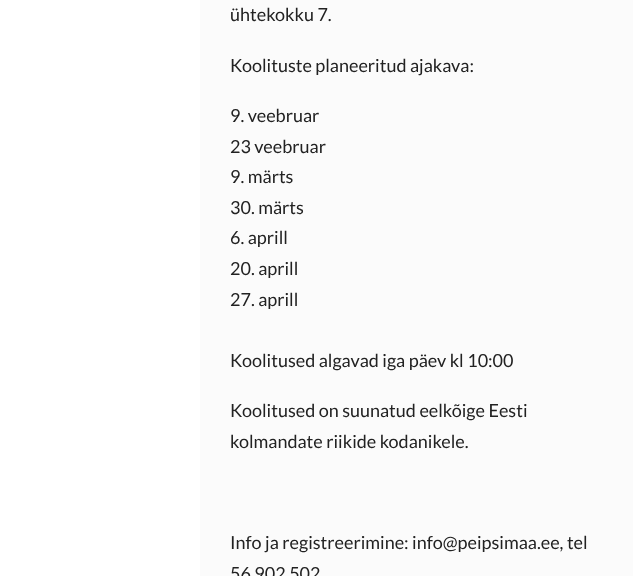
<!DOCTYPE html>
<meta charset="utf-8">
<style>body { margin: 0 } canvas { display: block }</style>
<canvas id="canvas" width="633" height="576"></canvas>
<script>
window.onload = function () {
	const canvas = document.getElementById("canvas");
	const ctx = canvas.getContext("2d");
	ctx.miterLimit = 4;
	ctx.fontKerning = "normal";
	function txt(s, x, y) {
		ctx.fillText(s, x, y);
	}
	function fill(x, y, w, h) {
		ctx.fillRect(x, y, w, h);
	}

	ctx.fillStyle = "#FFFFFF";
	fill(0, 0, 633, 576);
	ctx.fillStyle = "#FBFBFB";
	fill(200, 0, 433, 576);
	ctx.font = "18px Lato";
	ctx.fillStyle = "#222222";
	txt("ühtekokku 7.", 230, 21);
	txt("Koolituste planeeritud ajakava:", 230, 72);
	txt("9. veebruar", 230, 122);
	txt("23 veebruar", 230, 153);
	txt("9. märts", 230, 183);
	txt("30. märts", 230, 214);
	txt("6. aprill", 230, 244);
	txt("20. aprill", 230, 275);
	txt("27. aprill", 230, 306);
	txt("Koolitused algavad iga päev kl 10:00", 230, 367);
	txt("Koolitused on suunatud eelkõige Eesti", 230, 417);
	txt("kolmandate riikide kodanikele.", 230, 448);
	txt("Info ja registreerimine: info@peipsimaa.ee, tel", 230, 549);
	txt("56 902 502", 230, 580);
};
</script>
